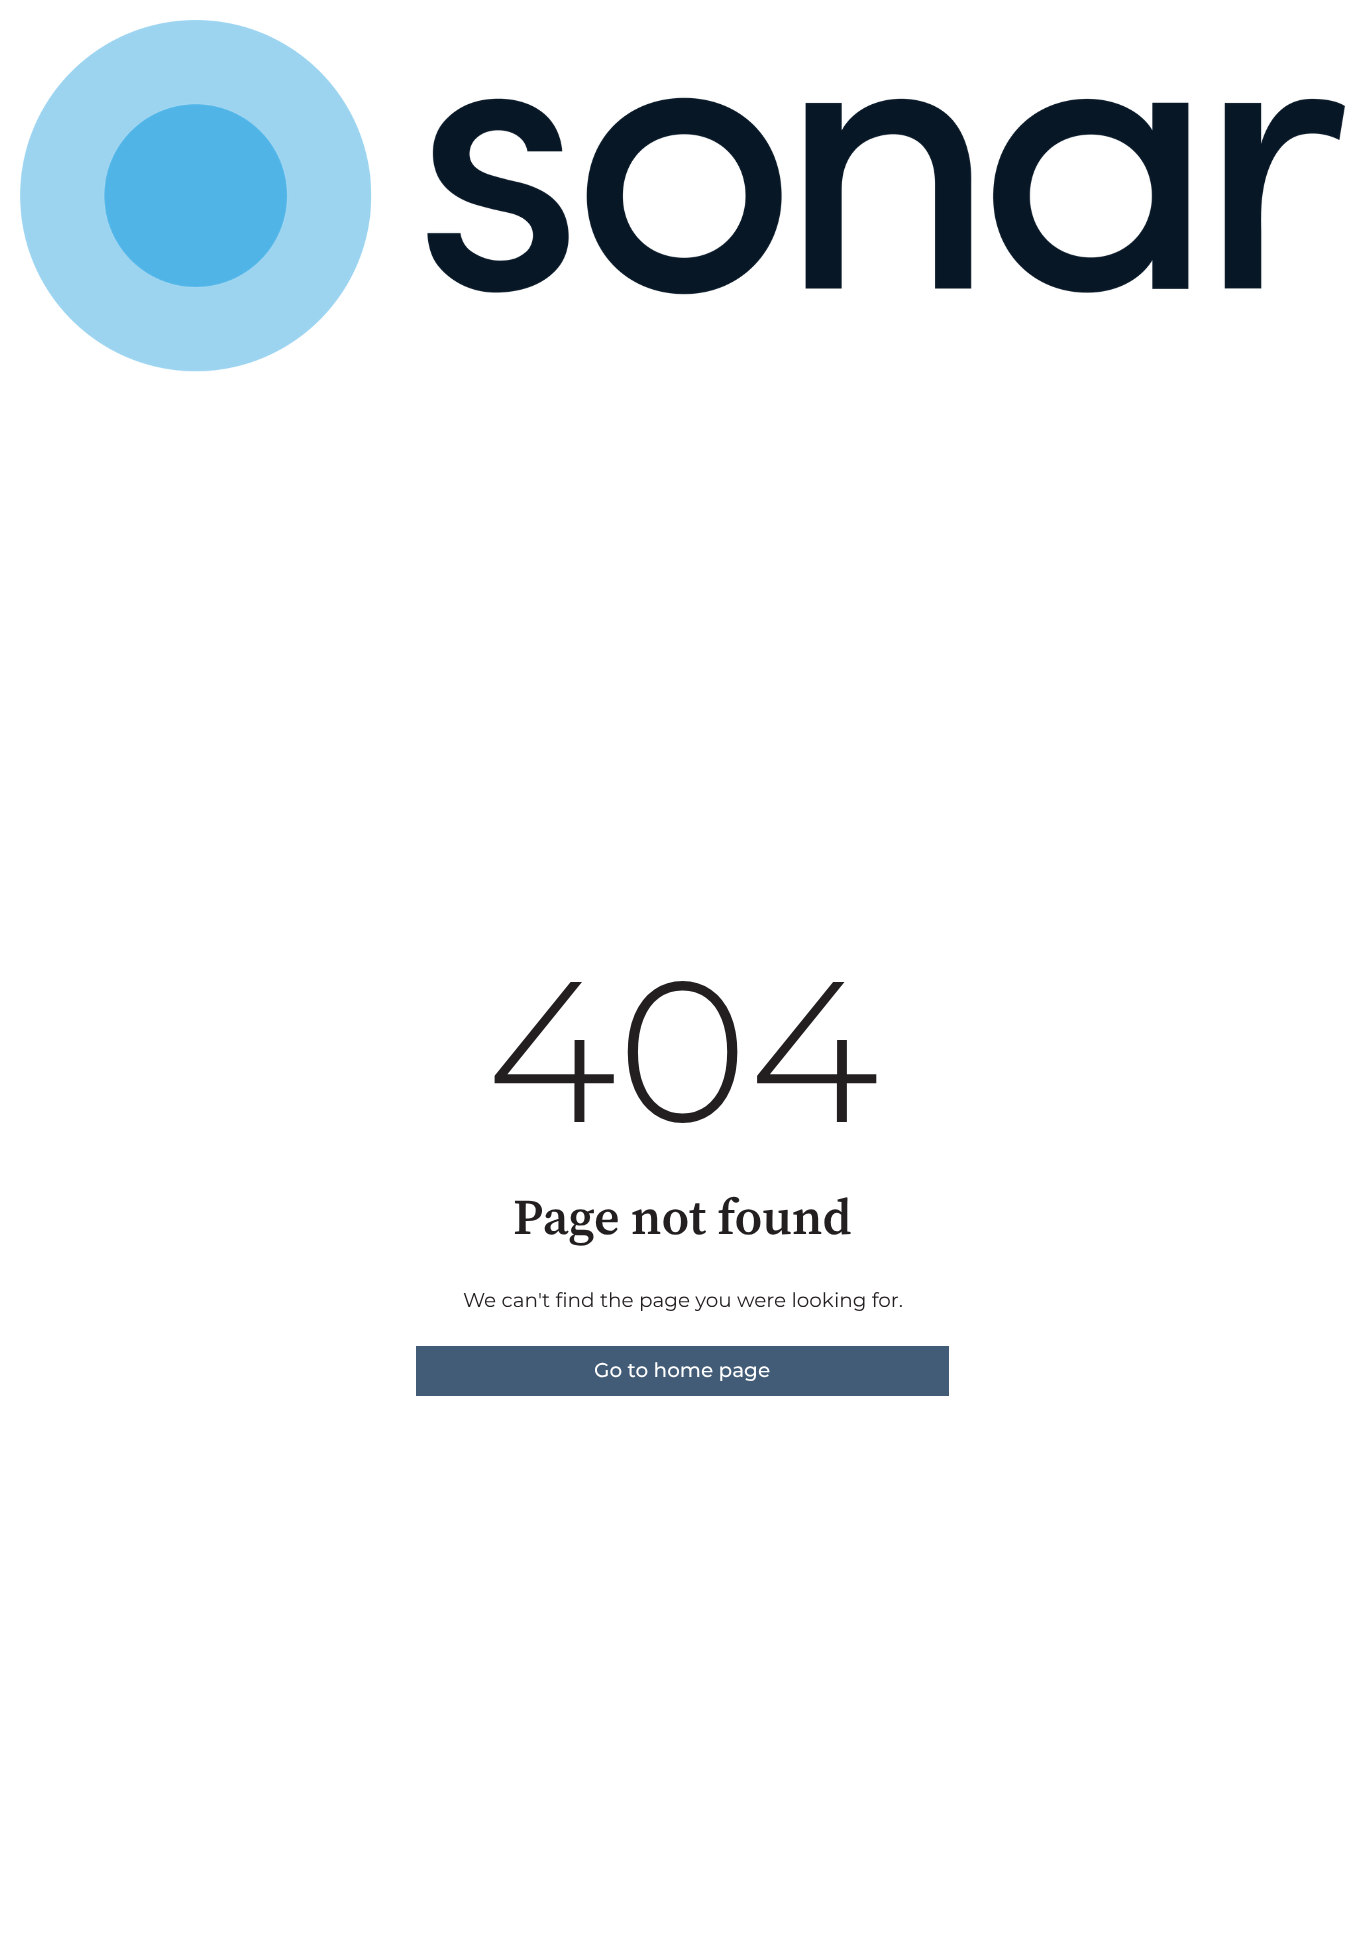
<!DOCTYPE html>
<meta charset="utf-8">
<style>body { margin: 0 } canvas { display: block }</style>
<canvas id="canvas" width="1365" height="1956"></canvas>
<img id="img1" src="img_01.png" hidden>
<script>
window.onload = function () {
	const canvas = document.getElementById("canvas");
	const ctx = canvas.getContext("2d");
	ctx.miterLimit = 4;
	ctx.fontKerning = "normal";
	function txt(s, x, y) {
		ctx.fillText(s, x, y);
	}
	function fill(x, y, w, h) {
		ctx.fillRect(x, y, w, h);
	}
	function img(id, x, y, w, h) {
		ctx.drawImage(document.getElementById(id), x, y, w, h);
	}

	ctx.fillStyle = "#FFFFFF";
	fill(0, 0, 1365, 1956);
	img("img1", 20, 20, 1325, 352);
	ctx.fillStyle = "#425B76";
	fill(416, 1346, 533, 50);
	ctx.font = "300 200px Montserrat";
	ctx.fillStyle = "#231F20";
	txt("404", 486, 1122);
	ctx.font = "600 50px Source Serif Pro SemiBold";
	txt("Page not found", 513, 1234);
	ctx.font = "20px Montserrat";
	txt("We can't find the page you were looking for.", 463, 1307);
	ctx.font = "500 20px Montserrat";
	ctx.fillStyle = "#FFFFFF";
	txt("Go to home page", 594, 1377);
};
</script>
